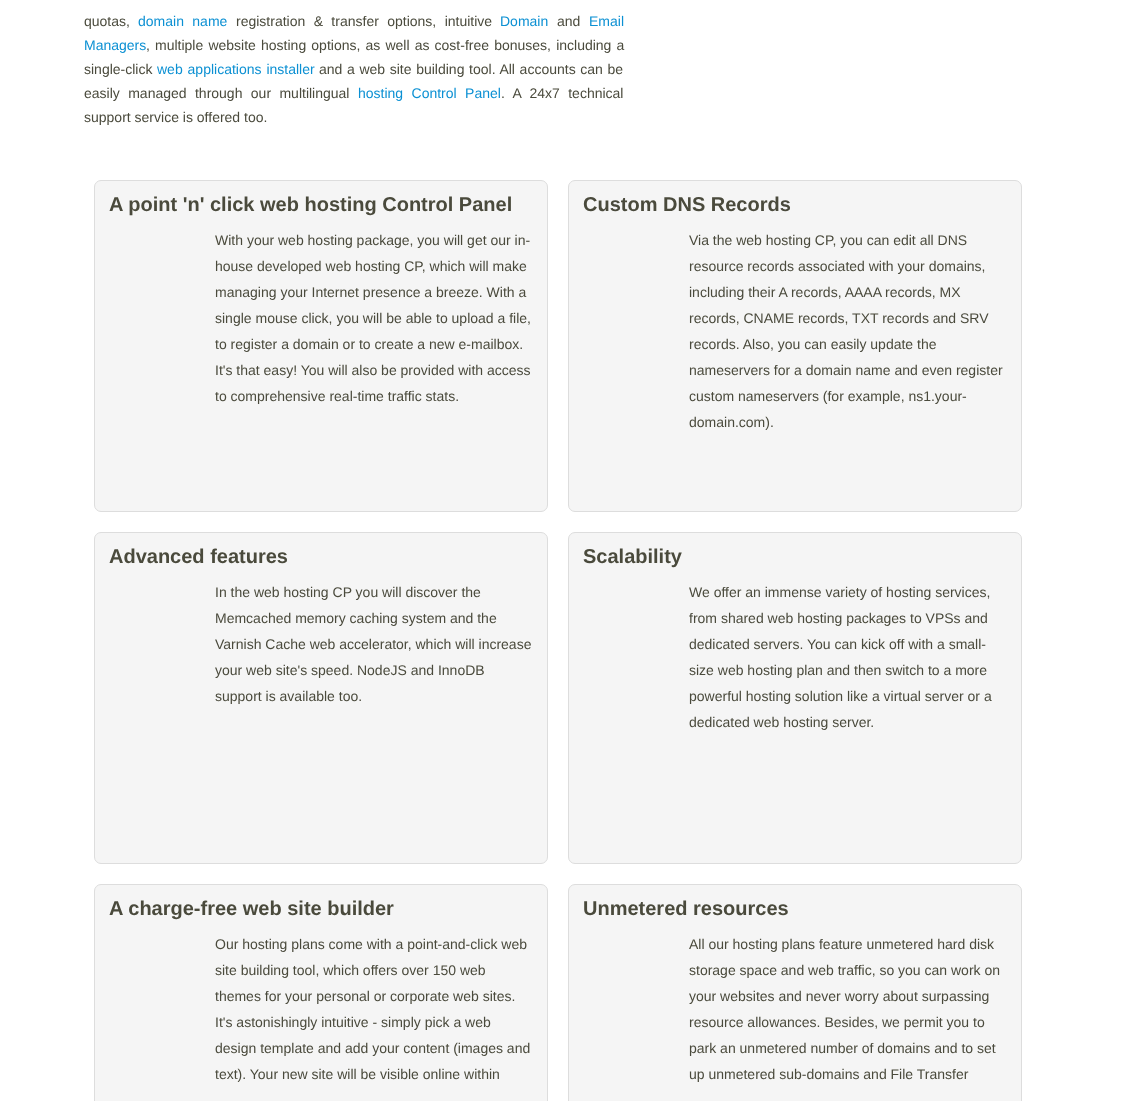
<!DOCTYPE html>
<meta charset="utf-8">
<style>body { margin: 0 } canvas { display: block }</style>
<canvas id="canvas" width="1127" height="1101"></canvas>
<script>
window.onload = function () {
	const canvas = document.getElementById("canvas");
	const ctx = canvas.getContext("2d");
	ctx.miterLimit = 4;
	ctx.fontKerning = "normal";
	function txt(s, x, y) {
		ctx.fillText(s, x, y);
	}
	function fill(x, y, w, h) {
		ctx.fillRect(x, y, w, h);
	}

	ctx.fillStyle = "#FFFFFF";
	fill(0, 0, 1127, 1101);
	ctx.fillStyle = "#F5F5F5";
	ctx.beginPath();
	ctx.roundRect(94.5, 180.5, 453, 331, 6.5);
	ctx.fill();
	ctx.strokeStyle = "#DDDDDD";
	ctx.stroke();
	ctx.beginPath();
	ctx.roundRect(568.5, 180.5, 453, 331, 6.5);
	ctx.fill();
	ctx.stroke();
	ctx.beginPath();
	ctx.roundRect(94.5, 532.5, 453, 331, 6.5);
	ctx.fill();
	ctx.stroke();
	ctx.beginPath();
	ctx.roundRect(568.5, 532.5, 453, 331, 6.5);
	ctx.fill();
	ctx.stroke();
	ctx.beginPath();
	ctx.roundRect(94.5, 884.5, 453, 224, 6.5);
	ctx.fill();
	ctx.stroke();
	ctx.beginPath();
	ctx.roundRect(568.5, 884.5, 453, 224, 6.5);
	ctx.fill();
	ctx.stroke();
	ctx.font = "14px Liberation Sans";
	ctx.fillStyle = "#4A4A3C";
	txt("quotas,", 84, 26);
	ctx.wordSpacing = "4.5px";
	ctx.fillStyle = "#0B90D3";
	txt("domain name", 138, 26);
	ctx.fillStyle = "#4A4A3C";
	txt("registration & transfer options, intuitive", 236, 26);
	ctx.wordSpacing = "0px";
	ctx.fillStyle = "#0B90D3";
	txt("Domain", 500, 26);
	ctx.fillStyle = "#4A4A3C";
	txt("and", 557, 26);
	ctx.fillStyle = "#0B90D3";
	txt("Email", 589, 26);
	txt("Managers", 84, 50);
	ctx.wordSpacing = "1.25px";
	ctx.fillStyle = "#4A4A3C";
	txt(", multiple website hosting options, as well as cost-free bonuses, including a", 146, 50);
	ctx.wordSpacing = "0px";
	txt("single-click", 84, 74);
	ctx.wordSpacing = "1px";
	ctx.fillStyle = "#0B90D3";
	txt("web applications installer", 157, 74);
	ctx.wordSpacing = "0.75px";
	ctx.fillStyle = "#4A4A3C";
	txt("and a web site building tool. All accounts can be", 319, 74);
	ctx.wordSpacing = "4.5px";
	txt("easily managed through our multilingual", 84, 98);
	ctx.fillStyle = "#0B90D3";
	txt("hosting Control Panel", 358, 98);
	ctx.fillStyle = "#4A4A3C";
	txt(". A 24x7 technical", 501, 98);
	ctx.wordSpacing = "0px";
	txt("support service is offered too.", 84, 122);
	ctx.font = "bold 20px Liberation Sans";
	txt("A point 'n' click web hosting Control Panel", 109, 211);
	ctx.font = "14px Liberation Sans";
	txt("With your web hosting package, you will get our in-", 215, 245);
	txt("house developed web hosting CP, which will make", 215, 271);
	txt("managing your Internet presence a breeze. With a", 215, 297);
	txt("single mouse click, you will be able to upload a file,", 215, 323);
	txt("to register a domain or to create a new e-mailbox.", 215, 349);
	txt("It's that easy! You will also be provided with access", 215, 375);
	txt("to comprehensive real-time traffic stats.", 215, 401);
	ctx.font = "bold 20px Liberation Sans";
	txt("Custom DNS Records", 583, 211);
	ctx.font = "14px Liberation Sans";
	txt("Via the web hosting CP, you can edit all DNS", 689, 245);
	txt("resource records associated with your domains,", 689, 271);
	txt("including their A records, AAAA records, MX", 689, 297);
	txt("records, CNAME records, TXT records and SRV", 689, 323);
	txt("records. Also, you can easily update the", 689, 349);
	txt("nameservers for a domain name and even register", 689, 375);
	txt("custom nameservers (for example, ns1.your-", 689, 401);
	txt("domain.com).", 689, 427);
	ctx.font = "bold 20px Liberation Sans";
	txt("Advanced features", 109, 563);
	ctx.font = "14px Liberation Sans";
	txt("In the web hosting CP you will discover the", 215, 597);
	txt("Memcached memory caching system and the", 215, 623);
	txt("Varnish Cache web accelerator, which will increase", 215, 649);
	txt("your web site's speed. NodeJS and InnoDB", 215, 675);
	txt("support is available too.", 215, 701);
	ctx.font = "bold 20px Liberation Sans";
	txt("Scalability", 583, 563);
	ctx.font = "14px Liberation Sans";
	txt("We offer an immense variety of hosting services,", 689, 597);
	txt("from shared web hosting packages to VPSs and", 689, 623);
	txt("dedicated servers. You can kick off with a small-", 689, 649);
	txt("size web hosting plan and then switch to a more", 689, 675);
	txt("powerful hosting solution like a virtual server or a", 689, 701);
	txt("dedicated web hosting server.", 689, 727);
	ctx.font = "bold 20px Liberation Sans";
	txt("A charge-free web site builder", 109, 915);
	ctx.font = "14px Liberation Sans";
	txt("Our hosting plans come with a point-and-click web", 215, 949);
	txt("site building tool, which offers over 150 web", 215, 975);
	txt("themes for your personal or corporate web sites.", 215, 1001);
	txt("It's astonishingly intuitive - simply pick a web", 215, 1027);
	txt("design template and add your content (images and", 215, 1053);
	txt("text). Your new site will be visible online within", 215, 1079);
	ctx.font = "bold 20px Liberation Sans";
	txt("Unmetered resources", 583, 915);
	ctx.font = "14px Liberation Sans";
	txt("All our hosting plans feature unmetered hard disk", 689, 949);
	txt("storage space and web traffic, so you can work on", 689, 975);
	txt("your websites and never worry about surpassing", 689, 1001);
	txt("resource allowances. Besides, we permit you to", 689, 1027);
	txt("park an unmetered number of domains and to set", 689, 1053);
	txt("up unmetered sub-domains and File Transfer", 689, 1079);
};
</script>
